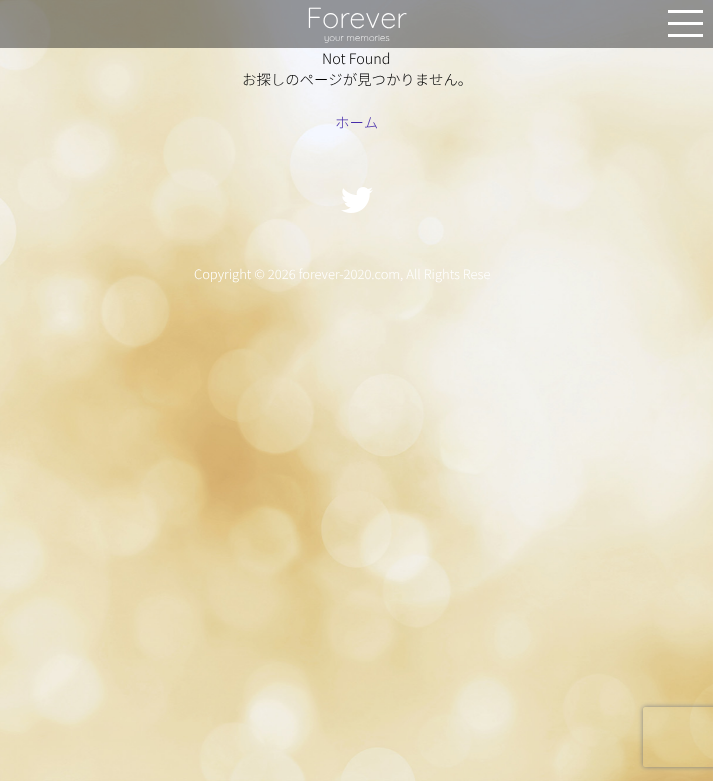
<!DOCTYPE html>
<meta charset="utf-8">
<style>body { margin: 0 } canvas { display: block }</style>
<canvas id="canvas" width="713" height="781"></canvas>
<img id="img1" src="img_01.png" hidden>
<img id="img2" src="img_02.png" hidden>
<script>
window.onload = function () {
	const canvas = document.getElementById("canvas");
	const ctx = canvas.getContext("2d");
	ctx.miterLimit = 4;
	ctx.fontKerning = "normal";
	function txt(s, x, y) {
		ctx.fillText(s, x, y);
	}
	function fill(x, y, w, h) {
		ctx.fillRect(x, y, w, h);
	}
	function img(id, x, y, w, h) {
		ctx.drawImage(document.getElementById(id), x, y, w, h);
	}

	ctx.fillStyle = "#FFFFFF";
	fill(0, 0, 713, 781);
	img("img1", 0, 0, 713, 781);
	ctx.fillStyle = "rgba(0, 0, 0, 0.4)";
	fill(0, 0, 713, 48);
	ctx.fillStyle = "#FFFFFF";
	fill(668, 22, 35, 3);
	fill(668, 10, 35, 3);
	fill(668, 34, 35, 3);
	img("img2", 341, 187, 32, 26);
	ctx.save();
	ctx.beginPath();
	ctx.moveTo(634, 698);
	ctx.lineTo(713, 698);
	ctx.lineTo(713, 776);
	ctx.lineTo(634, 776);
	ctx.closePath();
	ctx.moveTo(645, 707);
	ctx.lineTo(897, 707);
	ctx.bezierCurveTo(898, 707, 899, 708, 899, 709);
	ctx.lineTo(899, 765);
	ctx.bezierCurveTo(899, 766, 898, 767, 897, 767);
	ctx.lineTo(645, 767);
	ctx.bezierCurveTo(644, 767, 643, 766, 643, 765);
	ctx.lineTo(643, 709);
	ctx.bezierCurveTo(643, 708, 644, 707, 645, 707);
	ctx.closePath();
	ctx.clip("evenodd");
	ctx.fillStyle = "#808080";
	ctx.filter = "blur(2.5px)";
	ctx.beginPath();
	ctx.roundRect(643, 707, 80, 60, 2);
	ctx.fill();
	ctx.filter = "none";
	ctx.restore();
	ctx.font = "300 29px Quicksand";
	txt("Forever", 306, 28);
	ctx.font = "300 9.5px Quicksand";
	txt("your memories", 324, 41);
	ctx.font = "300 14.4px Noto Sans JP";
	ctx.fillStyle = "#000000";
	txt("Not Found", 322, 64);
	txt("お探しのページが見つかりません。", 242, 85);
	ctx.fillStyle = "#462CAA";
	txt("ホーム", 335, 128);
	ctx.font = "300 13px Noto Sans JP";
	ctx.fillStyle = "#FFFFFF";
	txt("Copyright © 2026 forever-2020.com, All Rights Rese", 194, 279);
};
</script>
